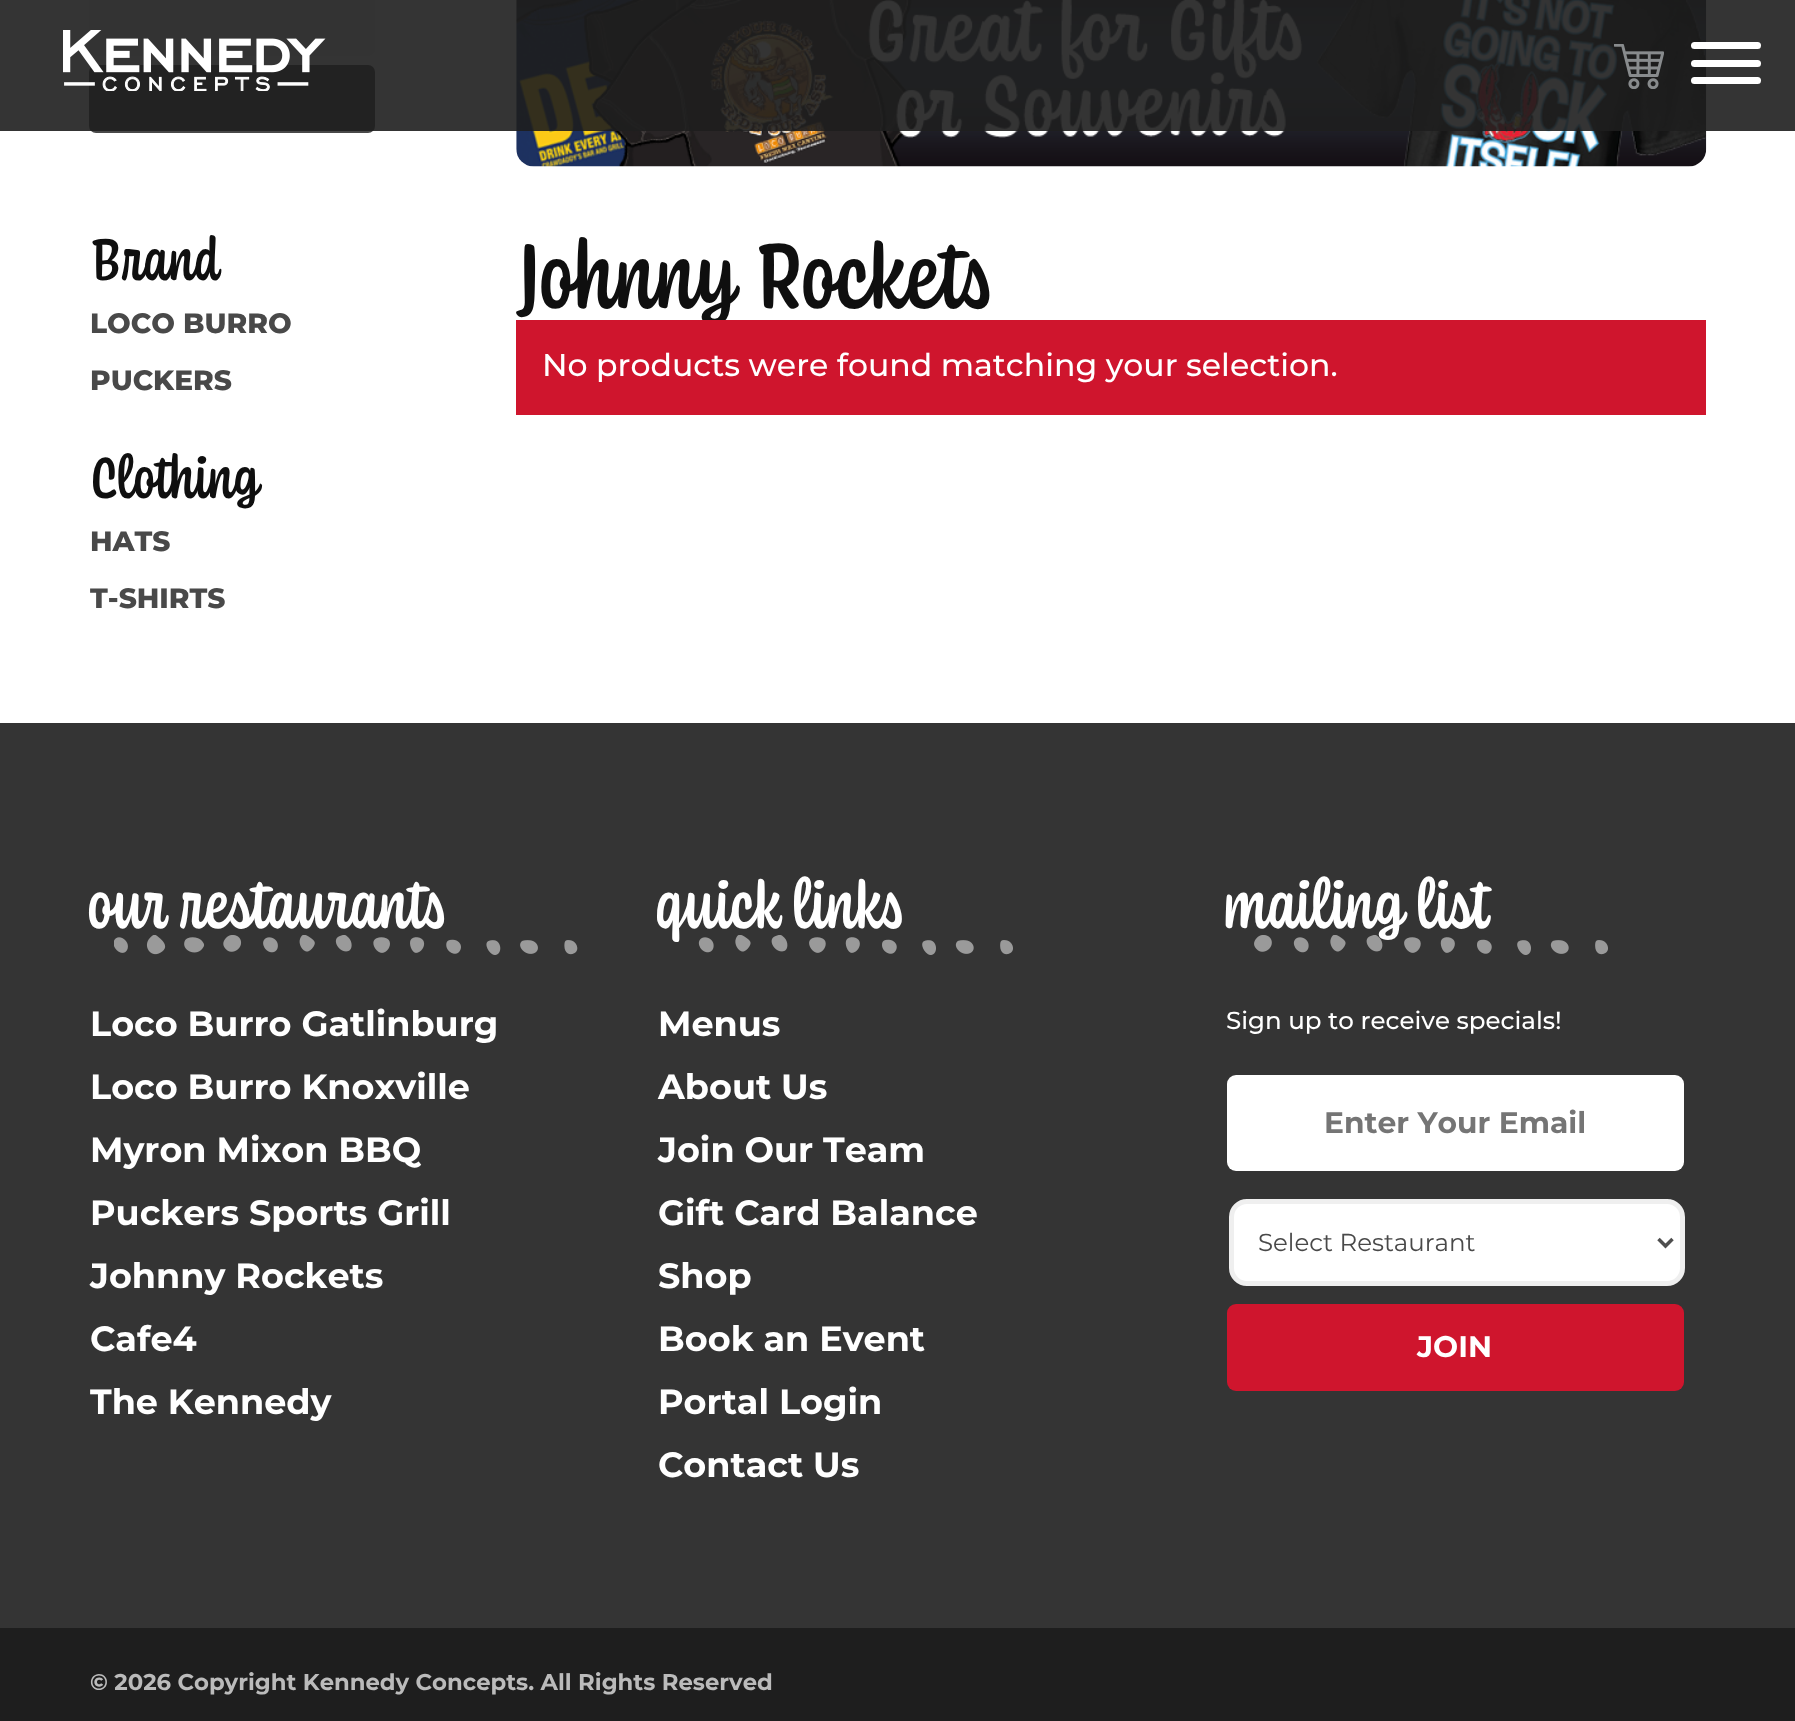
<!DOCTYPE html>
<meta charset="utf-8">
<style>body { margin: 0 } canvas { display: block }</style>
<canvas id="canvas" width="1795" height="1721"></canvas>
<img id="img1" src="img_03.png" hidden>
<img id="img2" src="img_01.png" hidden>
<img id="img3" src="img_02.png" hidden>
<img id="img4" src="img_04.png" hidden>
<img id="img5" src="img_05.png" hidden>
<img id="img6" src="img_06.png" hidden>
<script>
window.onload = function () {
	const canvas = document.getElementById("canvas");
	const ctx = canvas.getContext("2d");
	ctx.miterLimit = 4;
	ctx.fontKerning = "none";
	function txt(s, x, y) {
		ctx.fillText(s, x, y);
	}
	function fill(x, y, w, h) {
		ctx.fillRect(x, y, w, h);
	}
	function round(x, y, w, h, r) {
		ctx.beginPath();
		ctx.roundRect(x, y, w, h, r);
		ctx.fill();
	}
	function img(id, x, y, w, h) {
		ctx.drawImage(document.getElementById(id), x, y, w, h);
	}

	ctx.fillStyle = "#FFFFFF";
	fill(0, 0, 1795, 1721);
	ctx.fillStyle = "#EFEFEF";
	round(89, -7, 286, 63, 7);
	ctx.fillStyle = "#494949";
	round(89, 65, 286, 68, 7);
	img("img1", 516, 0, 1191, 167);
	ctx.fillStyle = "rgba(30, 30, 30, 0.9)";
	fill(0, 0, 1795, 131);
	ctx.fillStyle = "#FFFFFF";
	round(1691, 42, 70, 7, 3.5);
	round(1691, 60, 70, 7, 3.5);
	round(1691, 77, 70, 7, 3.5);
	img("img2", 63, 30, 263, 61);
	img("img3", 1614, 44, 50, 45);
	ctx.fillStyle = "#343434";
	fill(0, 723, 1795, 905);
	img("img4", 114, 935, 464, 20);
	ctx.fillStyle = "#FFFFFF";
	round(1227, 1075, 457, 96, 9);
	ctx.beginPath();
	ctx.roundRect(1231.5, 1201.5, 451, 82, 15.5);
	ctx.fill();
	ctx.strokeStyle = "#EFEFEF";
	ctx.lineWidth = 5;
	ctx.stroke();
	ctx.beginPath();
	ctx.moveTo(1658.5, 1239);
	ctx.lineTo(1665.5, 1246);
	ctx.lineTo(1672.5, 1239);
	ctx.strokeStyle = "#4E4E4E";
	ctx.lineWidth = 3.5;
	ctx.stroke();
	ctx.fillStyle = "#CF152D";
	round(1227, 1304, 457, 87, 9);
	ctx.fillStyle = "#1E1E1E";
	fill(0, 1628, 1795, 93);
	ctx.font = "500 61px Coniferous";
	ctx.fillStyle = "#0F0F0F";
	txt("Brand", 90, 280);
	ctx.font = "100 28px Montserrat";
	ctx.fillStyle = "#494949";
	txt("LOCO BURRO", 90, 333);
	txt("PUCKERS", 90, 390);
	ctx.font = "500 61px Coniferous";
	ctx.fillStyle = "#0F0F0F";
	txt("Clothing", 90, 498);
	ctx.font = "100 28px Montserrat";
	ctx.fillStyle = "#494949";
	txt("HATS", 90, 551);
	txt("T-SHIRTS", 90, 608);
	ctx.font = "500 96.25px Coniferous";
	ctx.fillStyle = "#0F0F0F";
	txt("Johnny Rockets", 516, 308);
	ctx.fillStyle = "#CF152D";
	fill(516, 320, 1190, 95);
	ctx.font = "100 31.5px 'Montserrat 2'";
	ctx.fillStyle = "#FFFFFF";
	txt("No products were found matching your selection.", 542, 376);
	ctx.font = "500 70px Coniferous";
	txt("our restaurants", 90, 928);
	ctx.font = "100 35px 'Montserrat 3'";
	txt("Loco Burro Gatlinburg", 90, 1036);
	txt("Loco Burro Knoxville", 90, 1099);
	txt("Myron Mixon BBQ", 90, 1162);
	txt("Puckers Sports Grill", 90, 1225);
	txt("Johnny Rockets", 90, 1288);
	txt("Cafe4", 90, 1351);
	txt("The Kennedy", 90, 1414);
	ctx.font = "500 70px Coniferous";
	txt("quick links", 658, 928);
	img("img5", 698, 935, 315, 20);
	ctx.font = "100 35px 'Montserrat 3'";
	txt("Menus", 658, 1036);
	txt("About Us", 658, 1099);
	txt("Join Our Team", 658, 1162);
	txt("Gift Card Balance", 658, 1225);
	txt("Shop", 658, 1288);
	txt("Book an Event", 658, 1351);
	txt("Portal Login", 658, 1414);
	txt("Contact Us", 658, 1477);
	ctx.font = "500 70px Coniferous";
	txt("mailing list", 1226, 928);
	img("img6", 1254, 935, 354, 20);
	ctx.font = "100 24.5px 'Montserrat 2'";
	txt("Sign up to receive specials!", 1226, 1029);
	ctx.font = "100 29.75px 'Montserrat 3'";
	ctx.fillStyle = "#757575";
	txt("Enter Your Email", 1324, 1133);
	ctx.font = "100 24.5px 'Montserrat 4'";
	ctx.fillStyle = "#494949";
	txt("Select Restaurant", 1258, 1251);
	ctx.font = "100 29.75px 'Montserrat 3'";
	ctx.fillStyle = "#FFFFFF";
	txt("JOIN", 1417, 1357);
	ctx.font = "100 22.75px 'Montserrat 3'";
	ctx.fillStyle = "#BBBBBB";
	txt("© 2026 Copyright Kennedy Concepts. All Rights Reserved", 90, 1690);
};
</script>
